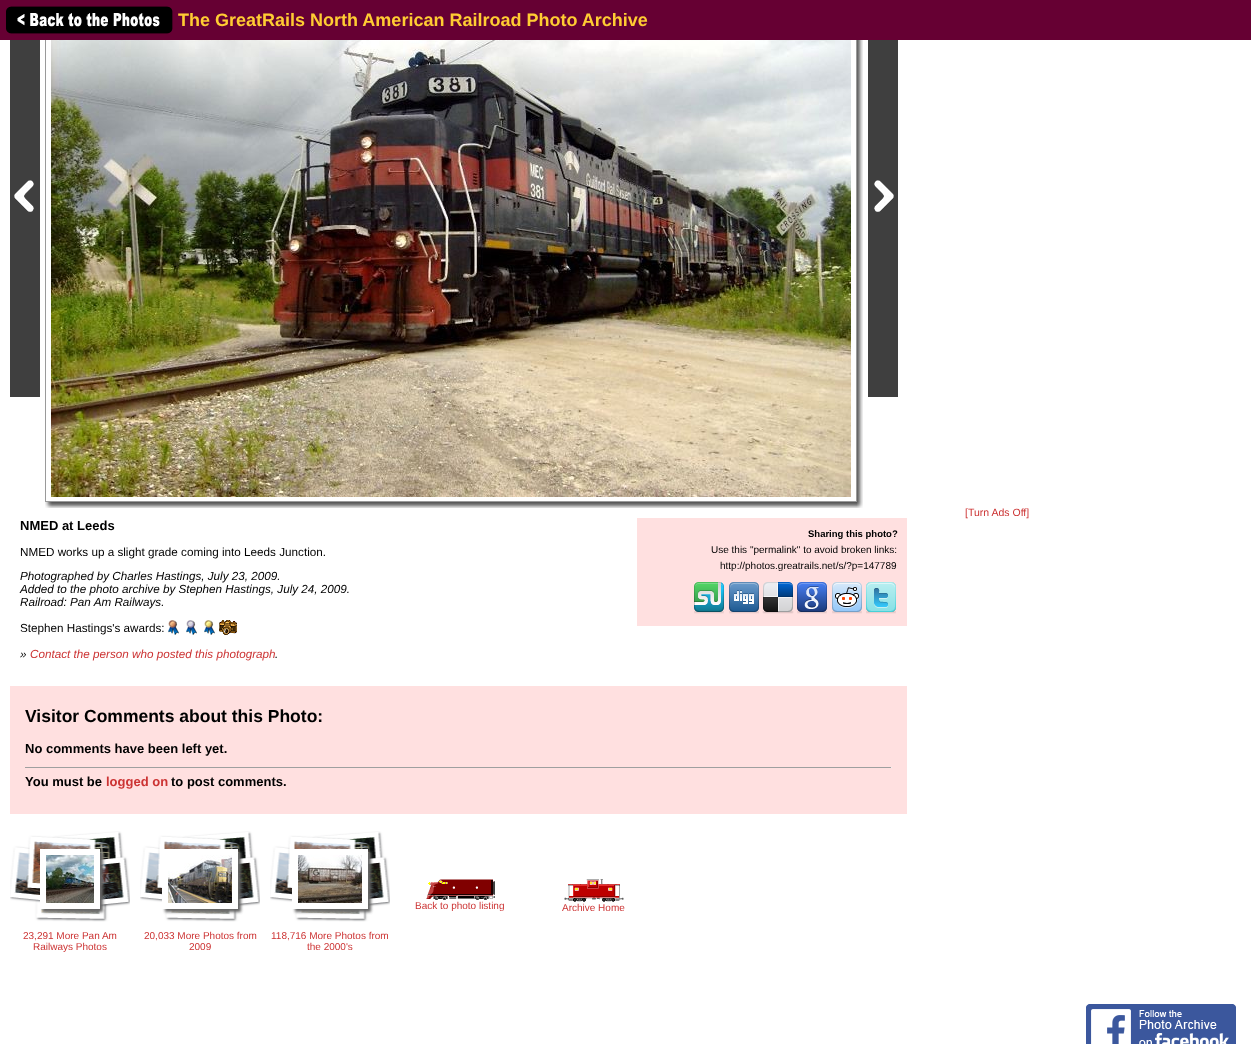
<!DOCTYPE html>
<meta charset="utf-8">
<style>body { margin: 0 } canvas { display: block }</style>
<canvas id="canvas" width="1251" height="1044"></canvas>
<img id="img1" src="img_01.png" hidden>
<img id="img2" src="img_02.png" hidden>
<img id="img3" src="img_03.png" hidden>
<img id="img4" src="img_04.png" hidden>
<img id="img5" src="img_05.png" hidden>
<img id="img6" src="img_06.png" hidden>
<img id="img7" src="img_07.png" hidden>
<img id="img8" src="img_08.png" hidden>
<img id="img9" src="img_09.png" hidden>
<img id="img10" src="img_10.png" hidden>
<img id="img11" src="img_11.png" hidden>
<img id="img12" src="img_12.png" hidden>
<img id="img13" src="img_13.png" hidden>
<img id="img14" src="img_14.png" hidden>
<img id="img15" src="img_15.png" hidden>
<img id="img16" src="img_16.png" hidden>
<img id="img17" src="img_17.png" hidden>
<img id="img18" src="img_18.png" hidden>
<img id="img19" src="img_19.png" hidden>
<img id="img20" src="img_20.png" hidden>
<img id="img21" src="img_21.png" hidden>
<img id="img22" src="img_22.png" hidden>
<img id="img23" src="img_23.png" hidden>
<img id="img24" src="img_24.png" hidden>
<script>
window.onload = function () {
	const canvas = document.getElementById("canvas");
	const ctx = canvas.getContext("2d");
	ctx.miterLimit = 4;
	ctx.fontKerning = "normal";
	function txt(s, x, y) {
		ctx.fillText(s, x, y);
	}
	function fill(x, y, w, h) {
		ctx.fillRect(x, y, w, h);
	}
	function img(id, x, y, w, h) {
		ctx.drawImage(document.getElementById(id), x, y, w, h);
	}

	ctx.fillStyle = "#FFFFFF";
	fill(0, 0, 1251, 1044);
	ctx.strokeStyle = "#9A9A9A";
	ctx.strokeRect(45.5, -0.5, 811, 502);
	ctx.fillStyle = "#660033";
	fill(0, 0, 1251, 40);
	img("img1", 6, 6, 167, 28);
	img("img2", 10, 40, 30, 357);
	img("img3", 51, 40, 800, 457);
	img("img4", 857, 40, 6, 462);
	img("img5", 868, 40, 30, 357);
	img("img6", 45, 502, 812, 6);
	img("img7", 857, 502, 6, 6);
	img("img8", 168, 620, 11, 15);
	img("img9", 186, 620, 11, 15);
	img("img10", 204, 620, 11, 15);
	img("img11", 219, 620, 18, 15);
	ctx.fillStyle = "#FFE0E0";
	fill(637, 518, 270, 108);
	img("img12", 694, 582, 30, 32);
	img("img13", 729, 582, 30, 32);
	img("img14", 762, 582, 32, 32);
	img("img15", 797, 582, 30, 32);
	img("img16", 832, 582, 30, 32);
	img("img17", 866, 582, 30, 32);
	fill(10, 686, 897, 128);
	ctx.fillStyle = "#9F9F9F";
	fill(25, 767, 867, 1);
	ctx.fillStyle = "#EEEEEE";
	fill(891, 767, 1, 1);
	img("img18", 426, 879, 69, 21);
	img("img19", 564, 879, 60, 23);
	img("img20", 10, 831, 120, 91);
	ctx.fillStyle = "#666666";
	ctx.filter = "blur(1.5px)";
	ctx.beginPath();
	ctx.rect(43, 852, 60, 60);
	ctx.fill();
	ctx.filter = "none";
	ctx.fillStyle = "#FFFFFF";
	fill(40, 849, 60, 60);
	img("img21", 46, 855, 48, 48);
	img("img20", 140, 831, 120, 91);
	ctx.fillStyle = "#666666";
	ctx.filter = "blur(1.5px)";
	ctx.beginPath();
	ctx.rect(165, 852, 76, 60);
	ctx.fill();
	ctx.filter = "none";
	ctx.fillStyle = "#FFFFFF";
	fill(162, 849, 76, 60);
	img("img22", 168, 855, 64, 48);
	img("img20", 270, 831, 120, 91);
	ctx.fillStyle = "#666666";
	ctx.filter = "blur(1.5px)";
	ctx.beginPath();
	ctx.rect(295, 852, 76, 60);
	ctx.fill();
	ctx.filter = "none";
	ctx.fillStyle = "#FFFFFF";
	fill(292, 849, 76, 60);
	img("img23", 298, 855, 64, 48);
	img("img24", 1086, 1004, 150, 40);
	ctx.font = "bold 18px Liberation Sans";
	ctx.fillStyle = "#FFCC33";
	txt("The GreatRails North American Railroad Photo Archive", 178, 26);
	ctx.font = "10.5px Liberation Sans";
	ctx.fillStyle = "#CC3333";
	txt("[Turn Ads Off]", 965, 516);
	ctx.font = "bold 13px Liberation Sans";
	ctx.fillStyle = "#000000";
	txt("NMED at Leeds", 20, 530);
	ctx.font = "11.7px Liberation Sans";
	txt("NMED works up a slight grade coming into Leeds Junction.", 20, 556);
	ctx.font = "italic 11.7px Liberation Sans";
	txt("Photographed by Charles Hastings, July 23, 2009.", 20, 580);
	txt("Added to the photo archive by Stephen Hastings, July 24, 2009.", 20, 593);
	txt("Railroad: Pan Am Railways.", 20, 606);
	ctx.font = "11.7px Liberation Sans";
	txt("Stephen Hastings's awards:", 20, 632);
	ctx.font = "italic 11.7px Liberation Sans";
	txt("»", 20, 658);
	ctx.fillStyle = "#CC3333";
	txt("Contact the person who posted this photograph", 30, 658);
	ctx.fillStyle = "#000000";
	txt(".", 275, 658);
	ctx.font = "bold 9.5px Liberation Sans";
	txt("Sharing this photo?", 808, 537);
	ctx.font = "10px Liberation Sans";
	txt("Use this \"permalink\" to avoid broken links:", 711, 553);
	txt("http://photos.greatrails.net/s/?p=147789", 720, 569);
	ctx.font = "bold 17.5px Liberation Sans";
	txt("Visitor Comments about this Photo:", 25, 722);
	ctx.font = "bold 13px Liberation Sans";
	txt("No comments have been left yet.", 25, 753);
	txt("You must be", 25, 786);
	ctx.fillStyle = "#CC3333";
	txt("logged on", 106, 786);
	ctx.fillStyle = "#000000";
	txt("to post comments.", 171, 786);
	ctx.font = "10px Liberation Sans";
	ctx.fillStyle = "#CC3333";
	txt("Back to photo listing", 415, 909);
	txt("Archive Home", 562, 911);
	txt("23,291 More Pan Am", 23, 939);
	txt("Railways Photos", 33, 950);
	txt("20,033 More Photos from", 144, 939);
	txt("2009", 189, 950);
	txt("118,716 More Photos from", 271, 939);
	txt("the 2000's", 307, 950);
};
</script>
